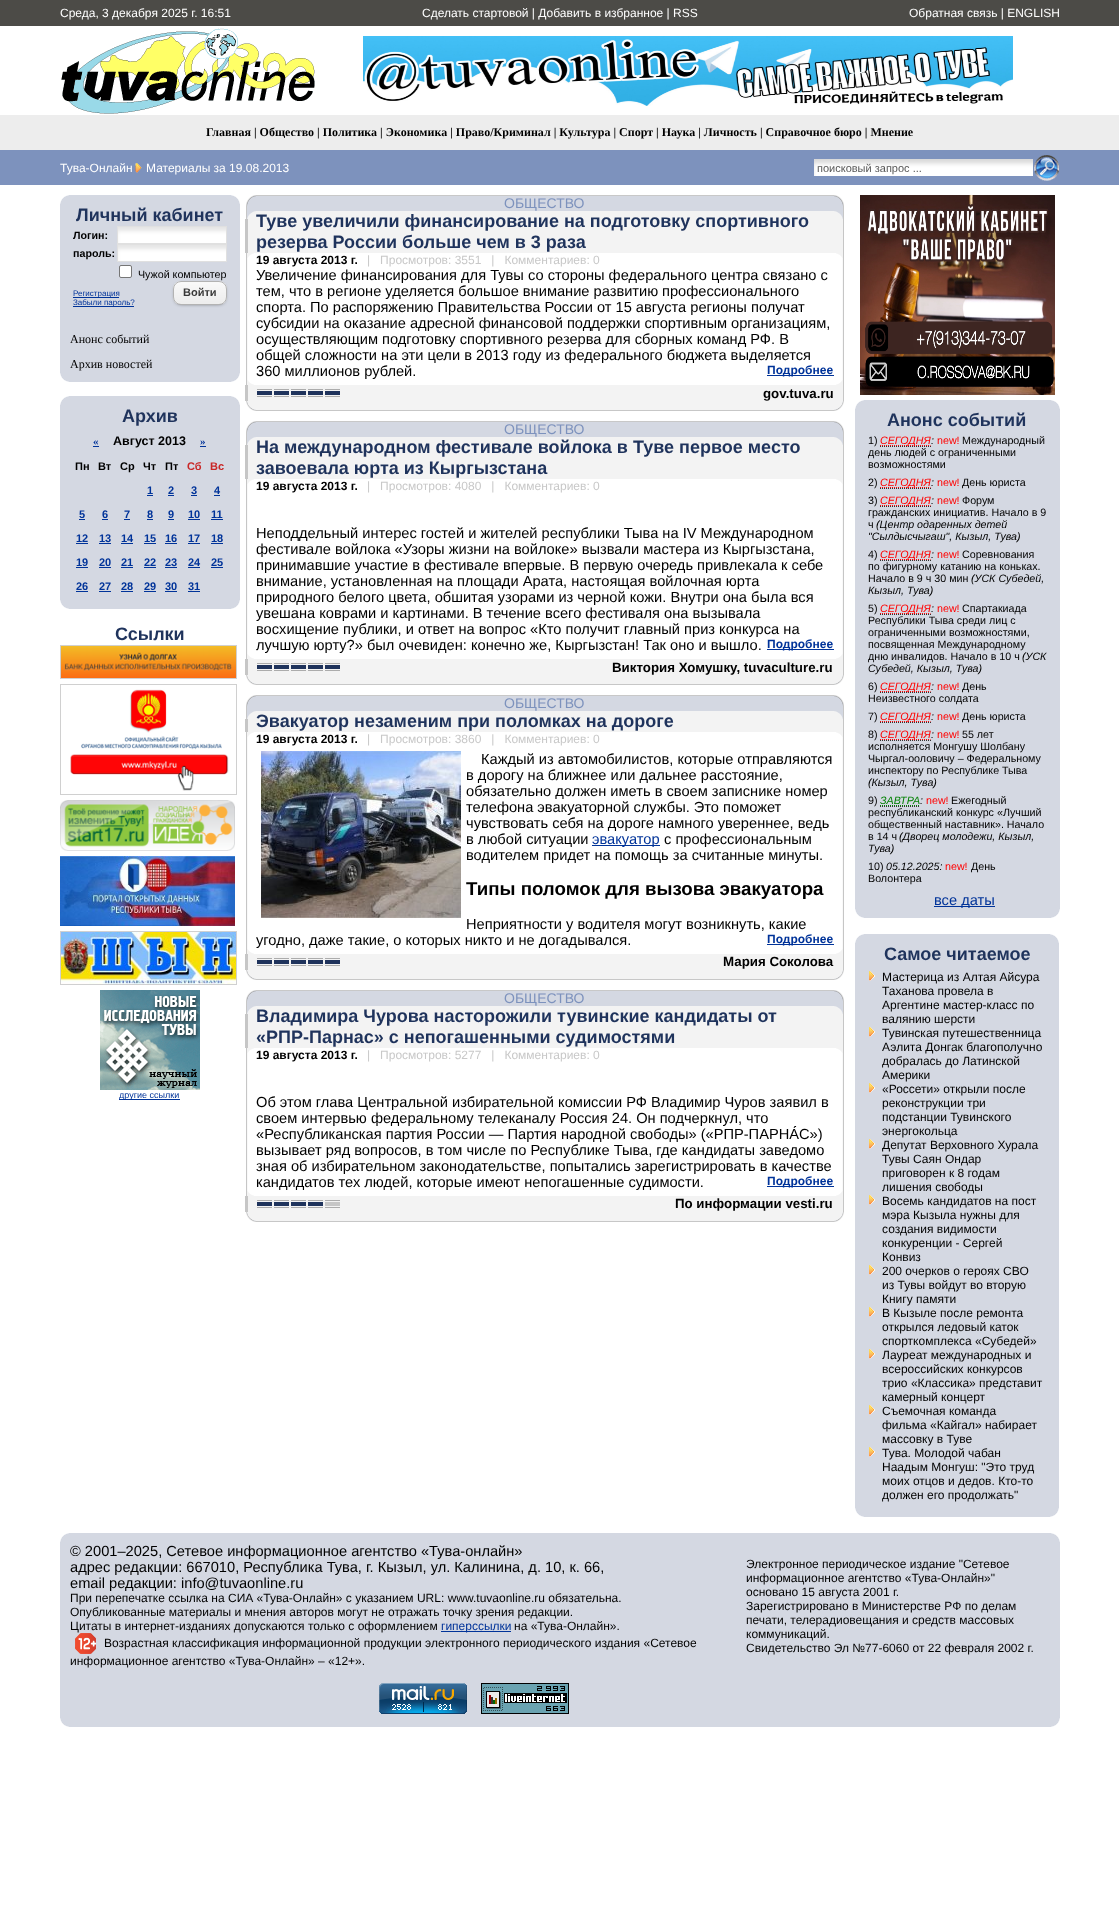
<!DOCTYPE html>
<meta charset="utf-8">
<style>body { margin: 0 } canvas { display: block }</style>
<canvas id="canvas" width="1119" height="1927"></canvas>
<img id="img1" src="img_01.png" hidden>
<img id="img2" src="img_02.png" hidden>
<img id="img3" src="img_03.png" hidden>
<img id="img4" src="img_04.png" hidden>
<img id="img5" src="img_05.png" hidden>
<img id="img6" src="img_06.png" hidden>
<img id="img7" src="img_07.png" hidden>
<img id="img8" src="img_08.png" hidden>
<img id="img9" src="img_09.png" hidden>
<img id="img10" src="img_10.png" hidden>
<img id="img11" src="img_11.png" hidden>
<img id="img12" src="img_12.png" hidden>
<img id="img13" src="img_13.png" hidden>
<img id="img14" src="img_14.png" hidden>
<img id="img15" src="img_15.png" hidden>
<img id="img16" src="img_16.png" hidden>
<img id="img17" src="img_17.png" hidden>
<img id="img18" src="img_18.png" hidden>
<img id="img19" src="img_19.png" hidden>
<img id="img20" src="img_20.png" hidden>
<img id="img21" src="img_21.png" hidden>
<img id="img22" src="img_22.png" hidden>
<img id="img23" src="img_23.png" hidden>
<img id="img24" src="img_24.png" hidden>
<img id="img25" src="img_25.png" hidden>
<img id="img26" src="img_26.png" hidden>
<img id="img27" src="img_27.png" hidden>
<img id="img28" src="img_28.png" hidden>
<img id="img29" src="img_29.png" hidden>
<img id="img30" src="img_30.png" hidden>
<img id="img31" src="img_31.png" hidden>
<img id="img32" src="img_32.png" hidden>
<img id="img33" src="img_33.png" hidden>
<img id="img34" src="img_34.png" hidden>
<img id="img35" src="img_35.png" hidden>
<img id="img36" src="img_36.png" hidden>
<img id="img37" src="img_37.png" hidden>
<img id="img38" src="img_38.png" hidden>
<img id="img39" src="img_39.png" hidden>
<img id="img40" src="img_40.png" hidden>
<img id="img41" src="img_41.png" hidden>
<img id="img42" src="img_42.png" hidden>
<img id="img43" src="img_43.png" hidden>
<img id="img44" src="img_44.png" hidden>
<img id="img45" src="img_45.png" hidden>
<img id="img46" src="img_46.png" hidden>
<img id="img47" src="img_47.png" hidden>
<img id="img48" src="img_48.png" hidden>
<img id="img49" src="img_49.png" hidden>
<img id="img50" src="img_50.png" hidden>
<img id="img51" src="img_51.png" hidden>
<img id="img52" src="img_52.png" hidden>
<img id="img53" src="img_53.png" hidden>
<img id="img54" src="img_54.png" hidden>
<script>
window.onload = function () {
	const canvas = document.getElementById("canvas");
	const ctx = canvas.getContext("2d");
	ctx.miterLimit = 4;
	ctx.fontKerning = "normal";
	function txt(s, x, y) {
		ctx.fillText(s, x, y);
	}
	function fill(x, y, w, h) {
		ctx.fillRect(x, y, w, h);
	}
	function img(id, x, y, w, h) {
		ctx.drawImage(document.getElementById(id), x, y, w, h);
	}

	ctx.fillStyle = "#FFFFFF";
	fill(0, 0, 1119, 1927);
	ctx.fillStyle = "#4C4B47";
	fill(0, 0, 1119, 26);
	img("img1", 61, 28, 254, 86);
	img("img2", 363, 36, 650, 70);
	ctx.fillStyle = "#EDEDED";
	fill(0, 115, 1119, 35);
	ctx.fillStyle = "#7D92BD";
	fill(0, 150, 1119, 35);
	img("img3", 135, 163, 7, 10);
	img("img4", 814, 159, 219, 17);
	img("img5", 1034, 155, 25, 26);
	ctx.fillStyle = "#D4D8E2";
	fill(60, 195, 180, 187);
	img("img6", 60, 195, 9, 9);
	img("img7", 231, 195, 9, 9);
	img("img8", 118, 227, 108, 16);
	ctx.strokeStyle = "#E0E0E0";
	ctx.strokeRect(117.5, 226.5, 109, 17);
	img("img8", 118, 245, 108, 16);
	ctx.strokeRect(117.5, 244.5, 109, 17);
	ctx.fillStyle = "#FFFFFF";
	ctx.beginPath();
	ctx.roundRect(119.5, 265.5, 12, 12, 1.5);
	ctx.fill();
	ctx.strokeStyle = "#767676";
	ctx.stroke();
	ctx.fillStyle = "#003399";
	fill(73, 297, 46, 1);
	fill(73, 306, 61, 1);
	ctx.fillStyle = "#000000";
	ctx.filter = "blur(2px)";
	ctx.beginPath();
	ctx.roundRect(176, 285, 48, 18, 5);
	ctx.fill();
	ctx.filter = "none";
	img("img9", 173, 281, 54, 23);
	ctx.beginPath();
	ctx.roundRect(173.5, 281.5, 53, 23, 7.5);
	ctx.strokeStyle = "#B3B3B3";
	ctx.stroke();
	img("img10", 60, 373, 9, 9);
	img("img11", 231, 373, 9, 9);
	ctx.fillStyle = "#D4D8E2";
	fill(60, 396, 180, 213);
	img("img6", 60, 396, 9, 9);
	img("img7", 231, 396, 9, 9);
	ctx.fillStyle = "#003399";
	fill(93, 446, 6, 1);
	fill(200, 446, 6, 1);
	fill(147, 495, 6, 1);
	fill(168, 495, 6, 1);
	fill(191, 495, 6, 1);
	fill(214, 495, 6, 1);
	fill(79, 519, 6, 1);
	fill(102, 519, 6, 1);
	fill(124, 519, 6, 1);
	fill(147, 519, 6, 1);
	fill(168, 519, 6, 1);
	fill(188, 519, 12, 1);
	fill(211, 519, 12, 1);
	fill(76, 543, 12, 1);
	fill(99, 543, 12, 1);
	fill(121, 543, 12, 1);
	fill(144, 543, 12, 1);
	fill(165, 543, 12, 1);
	fill(188, 543, 12, 1);
	fill(211, 543, 12, 1);
	fill(76, 567, 12, 1);
	fill(99, 567, 12, 1);
	fill(121, 567, 12, 1);
	fill(144, 567, 12, 1);
	fill(165, 567, 12, 1);
	fill(188, 567, 12, 1);
	fill(211, 567, 12, 1);
	fill(76, 591, 12, 1);
	fill(99, 591, 12, 1);
	fill(121, 591, 12, 1);
	fill(144, 591, 12, 1);
	fill(165, 591, 12, 1);
	fill(188, 591, 12, 1);
	img("img10", 60, 600, 9, 9);
	img("img11", 231, 600, 9, 9);
	ctx.strokeStyle = "#D0D0D0";
	ctx.strokeRect(60.5, 645.5, 176, 33);
	img("img12", 61, 646, 175, 32);
	ctx.strokeRect(60.5, 684.5, 176, 110);
	img("img13", 70, 689, 159, 102);
	img("img14", 60, 800, 175, 51);
	img("img15", 60, 856, 175, 70);
	ctx.strokeRect(60.5, 931.5, 176, 53);
	img("img16", 61, 932, 175, 52);
	img("img17", 100, 990, 100, 100);
	fill(119, 1099, 61, 1);
	ctx.fillStyle = "#D4D8E2";
	fill(247, 206, 9, 5);
	img("img18", 245, 195, 2, 16);
	img("img19", 246, 195, 10, 11);
	fill(256, 196, 578, 15);
	ctx.fillStyle = "#C8C8C8";
	fill(256, 195, 578, 1);
	ctx.fillStyle = "#D4D8E2";
	fill(834, 206, 9, 5);
	img("img20", 843, 195, 2, 16);
	img("img21", 834, 195, 10, 11);
	ctx.fillStyle = "#F3F3F3";
	fill(248, 219, 8, 34);
	ctx.fillStyle = "#C6C6C6";
	fill(245, 211, 3, 42);
	img("img22", 245, 211, 11, 8);
	ctx.fillStyle = "#F3F3F3";
	fill(256, 211, 578, 42);
	fill(834, 219, 9, 34);
	img("img23", 843, 211, 2, 42);
	img("img24", 834, 211, 9, 8);
	img("img25", 246, 253, 2, 14);
	img("img26", 247, 253, 7, 5);
	img("img27", 842, 253, 2, 14);
	img("img28", 836, 253, 7, 5);
	img("img29", 246, 267, 2, 112);
	ctx.fillStyle = "#003399";
	fill(767, 375, 67, 1);
	img("img30", 842, 267, 2, 112);
	img("img31", 246, 379, 2, 6);
	img("img32", 247, 380, 7, 5);
	img("img33", 842, 379, 2, 6);
	img("img34", 836, 380, 7, 5);
	ctx.fillStyle = "#F3F3F3";
	fill(248, 385, 595, 16);
	ctx.fillStyle = "#C6C6C6";
	fill(245, 385, 3, 16);
	img("img35", 843, 385, 2, 16);
	img("img36", 257, 389, 83, 8);
	img("img37", 257, 391, 83, 4);
	img("img38", 245, 401, 11, 10);
	ctx.fillStyle = "#F3F3F3";
	fill(256, 401, 578, 9);
	ctx.fillStyle = "#C7C7C7";
	fill(256, 410, 578, 1);
	img("img39", 844, 401, 1, 10);
	img("img40", 834, 401, 10, 10);
	ctx.fillStyle = "#D4D8E2";
	fill(247, 432, 9, 5);
	img("img18", 245, 421, 2, 16);
	img("img19", 246, 421, 10, 11);
	fill(256, 422, 578, 15);
	ctx.fillStyle = "#C8C8C8";
	fill(256, 421, 578, 1);
	ctx.fillStyle = "#D4D8E2";
	fill(834, 432, 9, 5);
	img("img20", 843, 421, 2, 16);
	img("img21", 834, 421, 10, 11);
	ctx.fillStyle = "#F3F3F3";
	fill(248, 445, 8, 34);
	ctx.fillStyle = "#C6C6C6";
	fill(245, 437, 3, 42);
	img("img22", 245, 437, 11, 8);
	ctx.fillStyle = "#F3F3F3";
	fill(256, 437, 578, 42);
	fill(834, 445, 9, 34);
	img("img23", 843, 437, 2, 42);
	img("img24", 834, 437, 9, 8);
	img("img25", 246, 479, 2, 14);
	img("img26", 247, 479, 7, 5);
	img("img27", 842, 479, 2, 14);
	img("img28", 836, 479, 7, 5);
	img("img41", 246, 493, 2, 160);
	ctx.fillStyle = "#003399";
	fill(767, 649, 67, 1);
	img("img42", 842, 493, 2, 160);
	img("img31", 246, 653, 2, 6);
	img("img32", 247, 654, 7, 5);
	img("img33", 842, 653, 2, 6);
	img("img34", 836, 654, 7, 5);
	ctx.fillStyle = "#F3F3F3";
	fill(248, 659, 595, 16);
	ctx.fillStyle = "#C6C6C6";
	fill(245, 659, 3, 16);
	img("img35", 843, 659, 2, 16);
	img("img36", 257, 663, 83, 8);
	img("img37", 257, 665, 83, 4);
	img("img38", 245, 675, 11, 10);
	ctx.fillStyle = "#F3F3F3";
	fill(256, 675, 578, 9);
	ctx.fillStyle = "#C7C7C7";
	fill(256, 684, 578, 1);
	img("img39", 844, 675, 1, 10);
	img("img40", 834, 675, 10, 10);
	ctx.fillStyle = "#D4D8E2";
	fill(247, 706, 9, 5);
	img("img18", 245, 695, 2, 16);
	img("img19", 246, 695, 10, 11);
	fill(256, 696, 578, 15);
	ctx.fillStyle = "#C8C8C8";
	fill(256, 695, 578, 1);
	ctx.fillStyle = "#D4D8E2";
	fill(834, 706, 9, 5);
	img("img20", 843, 695, 2, 16);
	img("img21", 834, 695, 10, 11);
	ctx.fillStyle = "#F3F3F3";
	fill(248, 719, 8, 13);
	ctx.fillStyle = "#C6C6C6";
	fill(245, 711, 3, 21);
	img("img22", 245, 711, 11, 8);
	ctx.fillStyle = "#F3F3F3";
	fill(256, 711, 578, 21);
	fill(834, 719, 9, 13);
	img("img43", 843, 711, 2, 21);
	img("img24", 834, 711, 9, 8);
	img("img25", 246, 732, 2, 14);
	img("img26", 247, 732, 7, 5);
	img("img27", 842, 732, 2, 14);
	img("img28", 836, 732, 7, 5);
	img("img44", 246, 746, 2, 202);
	img("img45", 261, 751, 200, 167);
	ctx.fillStyle = "#003399";
	fill(592, 845, 68, 1);
	fill(767, 944, 67, 1);
	img("img46", 842, 746, 2, 202);
	img("img31", 246, 948, 2, 6);
	img("img32", 247, 949, 7, 5);
	img("img33", 842, 948, 2, 6);
	img("img34", 836, 949, 7, 5);
	ctx.fillStyle = "#F3F3F3";
	fill(248, 954, 595, 16);
	ctx.fillStyle = "#C6C6C6";
	fill(245, 954, 3, 16);
	img("img35", 843, 954, 2, 16);
	img("img36", 257, 958, 83, 8);
	img("img37", 257, 960, 83, 4);
	img("img38", 245, 970, 11, 10);
	ctx.fillStyle = "#F3F3F3";
	fill(256, 970, 578, 9);
	ctx.fillStyle = "#C7C7C7";
	fill(256, 979, 578, 1);
	img("img39", 844, 970, 1, 10);
	img("img40", 834, 970, 10, 10);
	ctx.fillStyle = "#D4D8E2";
	fill(247, 1001, 9, 5);
	img("img18", 245, 990, 2, 16);
	img("img19", 246, 990, 10, 11);
	fill(256, 991, 578, 15);
	ctx.fillStyle = "#C8C8C8";
	fill(256, 990, 578, 1);
	ctx.fillStyle = "#D4D8E2";
	fill(834, 1001, 9, 5);
	img("img20", 843, 990, 2, 16);
	img("img21", 834, 990, 10, 11);
	ctx.fillStyle = "#F3F3F3";
	fill(248, 1014, 8, 34);
	ctx.fillStyle = "#C6C6C6";
	fill(245, 1006, 3, 42);
	img("img22", 245, 1006, 11, 8);
	ctx.fillStyle = "#F3F3F3";
	fill(256, 1006, 578, 42);
	fill(834, 1014, 9, 34);
	img("img23", 843, 1006, 2, 42);
	img("img24", 834, 1006, 9, 8);
	img("img25", 246, 1048, 2, 14);
	img("img26", 247, 1048, 7, 5);
	img("img27", 842, 1048, 2, 14);
	img("img28", 836, 1048, 7, 5);
	img("img47", 246, 1062, 2, 128);
	ctx.fillStyle = "#003399";
	fill(767, 1186, 67, 1);
	img("img48", 842, 1062, 2, 128);
	img("img31", 246, 1190, 2, 6);
	img("img32", 247, 1191, 7, 5);
	img("img33", 842, 1190, 2, 6);
	img("img34", 836, 1191, 7, 5);
	ctx.fillStyle = "#F3F3F3";
	fill(248, 1196, 595, 16);
	ctx.fillStyle = "#C6C6C6";
	fill(245, 1196, 3, 16);
	img("img35", 843, 1196, 2, 16);
	img("img36", 257, 1200, 83, 8);
	img("img49", 257, 1202, 66, 4);
	img("img38", 245, 1212, 11, 10);
	ctx.fillStyle = "#F3F3F3";
	fill(256, 1212, 578, 9);
	ctx.fillStyle = "#C7C7C7";
	fill(256, 1221, 578, 1);
	img("img39", 844, 1212, 1, 10);
	img("img40", 834, 1212, 10, 10);
	img("img50", 860, 195, 195, 200);
	ctx.fillStyle = "#D4D8E2";
	fill(855, 400, 205, 518);
	img("img6", 855, 400, 9, 9);
	img("img7", 1051, 400, 9, 9);
	ctx.beginPath();
	ctx.moveTo(880, 446.5);
	ctx.lineTo(931, 446.5);
	ctx.strokeStyle = "#333333";
	ctx.setLineDash([1, 1]);
	ctx.stroke();
	ctx.beginPath();
	ctx.moveTo(880, 445.5);
	ctx.lineTo(930.5, 445.5);
	ctx.strokeStyle = "#FF0000";
	ctx.stroke();
	ctx.beginPath();
	ctx.moveTo(880, 488.5);
	ctx.lineTo(931, 488.5);
	ctx.strokeStyle = "#333333";
	ctx.stroke();
	ctx.beginPath();
	ctx.moveTo(880, 487.5);
	ctx.lineTo(930.5, 487.5);
	ctx.strokeStyle = "#FF0000";
	ctx.stroke();
	ctx.beginPath();
	ctx.moveTo(880, 506.5);
	ctx.lineTo(931, 506.5);
	ctx.strokeStyle = "#333333";
	ctx.stroke();
	ctx.beginPath();
	ctx.moveTo(880, 505.5);
	ctx.lineTo(930.5, 505.5);
	ctx.strokeStyle = "#FF0000";
	ctx.stroke();
	ctx.beginPath();
	ctx.moveTo(880, 560.5);
	ctx.lineTo(931, 560.5);
	ctx.strokeStyle = "#333333";
	ctx.stroke();
	ctx.beginPath();
	ctx.moveTo(880, 559.5);
	ctx.lineTo(930.5, 559.5);
	ctx.strokeStyle = "#FF0000";
	ctx.stroke();
	ctx.beginPath();
	ctx.moveTo(880, 614.5);
	ctx.lineTo(931, 614.5);
	ctx.strokeStyle = "#333333";
	ctx.stroke();
	ctx.beginPath();
	ctx.moveTo(880, 613.5);
	ctx.lineTo(930.5, 613.5);
	ctx.strokeStyle = "#FF0000";
	ctx.stroke();
	ctx.beginPath();
	ctx.moveTo(880, 692.5);
	ctx.lineTo(931, 692.5);
	ctx.strokeStyle = "#333333";
	ctx.stroke();
	ctx.beginPath();
	ctx.moveTo(880, 691.5);
	ctx.lineTo(930.5, 691.5);
	ctx.strokeStyle = "#FF0000";
	ctx.stroke();
	ctx.beginPath();
	ctx.moveTo(880, 722.5);
	ctx.lineTo(931, 722.5);
	ctx.strokeStyle = "#333333";
	ctx.stroke();
	ctx.beginPath();
	ctx.moveTo(880, 721.5);
	ctx.lineTo(930.5, 721.5);
	ctx.strokeStyle = "#FF0000";
	ctx.stroke();
	ctx.beginPath();
	ctx.moveTo(880, 740.5);
	ctx.lineTo(931, 740.5);
	ctx.strokeStyle = "#333333";
	ctx.stroke();
	ctx.beginPath();
	ctx.moveTo(880, 739.5);
	ctx.lineTo(930.5, 739.5);
	ctx.strokeStyle = "#FF0000";
	ctx.stroke();
	ctx.beginPath();
	ctx.moveTo(880, 806.5);
	ctx.lineTo(920, 806.5);
	ctx.strokeStyle = "#333333";
	ctx.stroke();
	ctx.beginPath();
	ctx.moveTo(880, 805.5);
	ctx.lineTo(920, 805.5);
	ctx.strokeStyle = "#008000";
	ctx.stroke();
	ctx.fillStyle = "#003399";
	fill(934, 906, 61, 1);
	img("img10", 855, 909, 9, 9);
	img("img11", 1051, 909, 9, 9);
	ctx.fillStyle = "#D4D8E2";
	fill(855, 934, 204, 583);
	img("img6", 855, 934, 9, 9);
	img("img7", 1050, 934, 9, 9);
	img("img51", 869, 971, 6, 10);
	img("img51", 869, 1027, 6, 10);
	img("img51", 869, 1083, 6, 10);
	img("img51", 869, 1139, 6, 10);
	img("img51", 869, 1195, 6, 10);
	img("img51", 869, 1265, 6, 10);
	img("img51", 869, 1307, 6, 10);
	img("img51", 869, 1349, 6, 10);
	img("img51", 869, 1405, 6, 10);
	img("img51", 869, 1447, 6, 10);
	img("img10", 855, 1508, 9, 9);
	img("img11", 1050, 1508, 9, 9);
	fill(60, 1533, 1000, 194);
	img("img6", 60, 1533, 9, 9);
	img("img7", 1051, 1533, 9, 9);
	ctx.fillStyle = "#003399";
	fill(441, 1631, 70, 1);
	img("img52", 75, 1633, 21, 21);
	img("img53", 379, 1683, 88, 31);
	img("img54", 481, 1683, 88, 31);
	img("img10", 60, 1718, 9, 9);
	img("img11", 1051, 1718, 9, 9);
	ctx.font = "12px Liberation Sans";
	ctx.fillStyle = "#FFFFFF";
	txt("Среда, 3 декабря 2025 г. 16:51", 60, 17);
	txt("Сделать стартовой | Добавить в избранное | RSS", 422, 17);
	txt("Обратная связь | ENGLISH", 909, 17);
	ctx.font = "bold 12px Liberation Serif";
	ctx.fillStyle = "#000000";
	txt("Главная | Общество | Политика | Экономика | Право/Криминал | Культура | Спорт | Наука | Личность | Справочное бюро | Мнение", 206, 136);
	ctx.font = "12px Liberation Sans";
	ctx.fillStyle = "#FFFFFF";
	txt("Тува-Онлайн", 60, 172);
	txt("Материалы за 19.08.2013", 146, 172);
	ctx.font = "11px Liberation Sans";
	ctx.fillStyle = "#555555";
	txt("поисковый запрос ...", 817, 172);
	ctx.font = "bold 18px Liberation Sans";
	ctx.fillStyle = "#1F335C";
	txt("Личный кабинет", 76, 221);
	ctx.font = "bold 10.7px Liberation Sans";
	ctx.fillStyle = "#000000";
	txt("Логин:", 73, 239);
	txt("пароль:", 73, 257);
	ctx.font = "10.7px Liberation Sans";
	txt("Чужой компьютер", 138, 278);
	ctx.font = "8px Liberation Sans";
	ctx.fillStyle = "#003399";
	txt("Регистрация", 73, 296);
	txt("Забыли пароль?", 73, 305);
	ctx.font = "bold 11px Liberation Sans";
	ctx.fillStyle = "#383838";
	txt("Войти", 183, 296);
	ctx.font = "12px Liberation Serif";
	ctx.fillStyle = "#000000";
	txt("Анонс событий", 70, 343);
	txt("Архив новостей", 70, 368);
	ctx.font = "bold 18px Liberation Sans";
	ctx.fillStyle = "#1F335C";
	txt("Архив", 122, 422);
	ctx.font = "bold 11px Liberation Serif";
	ctx.fillStyle = "#003399";
	txt("«", 93, 445);
	ctx.font = "bold 12.5px Liberation Sans";
	ctx.fillStyle = "#000000";
	txt("Август 2013", 113, 445);
	ctx.font = "bold 11px Liberation Serif";
	ctx.fillStyle = "#003399";
	txt("»", 200, 445);
	ctx.font = "bold 11px Liberation Sans";
	ctx.fillStyle = "#000000";
	txt("Пн", 75, 470);
	txt("Вт", 98, 470);
	txt("Ср", 120, 470);
	txt("Чт", 143, 470);
	txt("Пт", 165, 470);
	ctx.fillStyle = "#C92727";
	txt("Сб", 187, 470);
	txt("Вс", 210, 470);
	ctx.fillStyle = "#003399";
	txt("1", 147, 494);
	txt("2", 168, 494);
	txt("3", 191, 494);
	txt("4", 214, 494);
	txt("5", 79, 518);
	txt("6", 102, 518);
	txt("7", 124, 518);
	txt("8", 147, 518);
	txt("9", 168, 518);
	txt("10", 188, 518);
	txt("11", 211, 518);
	txt("12", 76, 542);
	txt("13", 99, 542);
	txt("14", 121, 542);
	txt("15", 144, 542);
	txt("16", 165, 542);
	txt("17", 188, 542);
	txt("18", 211, 542);
	txt("19", 76, 566);
	txt("20", 99, 566);
	txt("21", 121, 566);
	txt("22", 144, 566);
	txt("23", 165, 566);
	txt("24", 188, 566);
	txt("25", 211, 566);
	txt("26", 76, 590);
	txt("27", 99, 590);
	txt("28", 121, 590);
	txt("29", 144, 590);
	txt("30", 165, 590);
	txt("31", 188, 590);
	ctx.font = "bold 18px Liberation Sans";
	ctx.fillStyle = "#1F335C";
	txt("Ссылки", 115, 640);
	ctx.font = "9px Liberation Sans";
	ctx.fillStyle = "#003399";
	txt("другие ссылки", 119, 1098);
	ctx.font = "14px Liberation Sans";
	ctx.fillStyle = "#7D92BD";
	txt("ОБЩЕСТВО", 504, 208);
	ctx.font = "bold 18px Liberation Sans";
	ctx.fillStyle = "#1F335C";
	txt("Туве увеличили финансирование на подготовку спортивного", 256, 227);
	txt("резерва России больше чем в 3 раза", 256, 248);
	ctx.font = "bold 12px Liberation Sans";
	ctx.fillStyle = "#000000";
	txt("19 августа 2013 г.", 256, 264);
	ctx.font = "12px Liberation Sans";
	ctx.fillStyle = "#C8C8C8";
	txt("|   Просмотров: 3551   |   Комментариев: 0", 367, 264);
	ctx.font = "14.65px Liberation Sans";
	ctx.fillStyle = "#000000";
	txt("Увеличение финансирования для Тувы со стороны федерального центра связано с", 256, 280);
	txt("тем, что в регионе уделяется большое внимание развитию", 256, 296);
	txt("профессионального", 662, 296);
	txt("спорта. По распоряжению Правительства России от 15 августа регионы получат", 256, 312);
	txt("субсидии на оказание адресной финансовой поддержки спортивным организациям,", 256, 328);
	txt("осуществляющим подготовку спортивного резерва для сборных команд РФ. В", 256, 344);
	txt("общей сложности на эти цели в 2013 году из федерального бюджета выделяется", 256, 360);
	txt("360 миллионов рублей.", 256, 376);
	ctx.font = "bold 12px Liberation Sans";
	ctx.fillStyle = "#003399";
	txt("Подробнее", 767, 374);
	ctx.font = "bold 13.3px Liberation Sans";
	ctx.fillStyle = "#000000";
	txt("gov.tuva.ru", 763, 398);
	ctx.font = "14px Liberation Sans";
	ctx.fillStyle = "#7D92BD";
	txt("ОБЩЕСТВО", 504, 434);
	ctx.font = "bold 18px Liberation Sans";
	ctx.fillStyle = "#1F335C";
	txt("На международном фестивале войлока в Туве первое место", 256, 453);
	txt("завоевала юрта из Кыргызстана", 256, 474);
	ctx.font = "bold 12px Liberation Sans";
	ctx.fillStyle = "#000000";
	txt("19 августа 2013 г.", 256, 490);
	ctx.font = "12px Liberation Sans";
	ctx.fillStyle = "#C8C8C8";
	txt("|   Просмотров: 4080   |   Комментариев: 0", 367, 490);
	ctx.font = "14.65px Liberation Sans";
	ctx.fillStyle = "#000000";
	txt("Неподдельный интерес гостей и жителей республики Тыва на IV Международном", 256, 538);
	txt("фестивале войлока «Узоры жизни на войлоке» вызвали мастера из Кыргызстана,", 256, 554);
	txt("принимавшие участие в фестивале впервые. В первую очередь привлекала к себе", 256, 570);
	txt("внимание, установленная на площади Арата, настоящая войлочная юрта", 256, 586);
	txt("природного белого цвета, обшитая узорами из черной кожи. Внутри она была вся", 256, 602);
	txt("увешана коврами и картинами. В течение всего фестиваля она вызывала", 256, 618);
	txt("восхищение публики, и ответ на вопрос «Кто получит главный приз конкурса на", 256, 634);
	txt("лучшую юрту?» был очевиден: конечно же, Кыргызстан! Так оно и вышло.", 256, 650);
	ctx.font = "bold 12px Liberation Sans";
	ctx.fillStyle = "#003399";
	txt("Подробнее", 767, 648);
	ctx.font = "bold 13.3px Liberation Sans";
	ctx.fillStyle = "#000000";
	txt("Виктория Хомушку, tuvaculture.ru", 612, 672);
	ctx.font = "14px Liberation Sans";
	ctx.fillStyle = "#7D92BD";
	txt("ОБЩЕСТВО", 504, 708);
	ctx.font = "bold 18px Liberation Sans";
	ctx.fillStyle = "#1F335C";
	txt("Эвакуатор незаменим при поломках на дороге", 256, 727);
	ctx.font = "bold 12px Liberation Sans";
	ctx.fillStyle = "#000000";
	txt("19 августа 2013 г.", 256, 743);
	ctx.font = "12px Liberation Sans";
	ctx.fillStyle = "#C8C8C8";
	txt("|   Просмотров: 3860   |   Комментариев: 0", 367, 743);
	ctx.font = "14.65px Liberation Sans";
	ctx.fillStyle = "#000000";
	txt("Каждый из автомобилистов, которые отправляются", 481, 764);
	txt("в дорогу на ближнее или дальнее расстояние,", 466, 780);
	txt("обязательно должен иметь в своем записнике номер", 466, 796);
	txt("телефона эвакуаторной службы. Это поможет", 466, 812);
	txt("чувствовать себя на дороге намного увереннее, ведь", 466, 828);
	txt("в любой ситуации", 466, 844);
	ctx.fillStyle = "#003399";
	txt("эвакуатор", 592, 844);
	ctx.fillStyle = "#000000";
	txt("с профессиональным", 664, 844);
	txt("водителем придет на помощь за считанные минуты.", 466, 860);
	ctx.font = "bold 18.7px Liberation Sans";
	txt("Типы поломок для вызова эвакуатора", 466, 895);
	ctx.font = "14.65px Liberation Sans";
	txt("Неприятности у водителя могут возникнуть, какие", 466, 929);
	txt("угодно, даже такие, о которых никто и не догадывался.", 256, 945);
	ctx.font = "bold 12px Liberation Sans";
	ctx.fillStyle = "#003399";
	txt("Подробнее", 767, 943);
	ctx.font = "bold 13.3px Liberation Sans";
	ctx.fillStyle = "#000000";
	txt("Мария Соколова", 723, 966);
	ctx.font = "14px Liberation Sans";
	ctx.fillStyle = "#7D92BD";
	txt("ОБЩЕСТВО", 504, 1003);
	ctx.font = "bold 18px Liberation Sans";
	ctx.fillStyle = "#1F335C";
	txt("Владимира Чурова насторожили тувинские кандидаты от", 256, 1022);
	txt("«РПР-Парнас» с непогашенными судимостями", 256, 1043);
	ctx.font = "bold 12px Liberation Sans";
	ctx.fillStyle = "#000000";
	txt("19 августа 2013 г.", 256, 1059);
	ctx.font = "12px Liberation Sans";
	ctx.fillStyle = "#C8C8C8";
	txt("|   Просмотров: 5277   |   Комментариев: 0", 367, 1059);
	ctx.font = "14.65px Liberation Sans";
	ctx.fillStyle = "#000000";
	txt("Об этом глава Центральной избирательной комиссии РФ Владимир Чуров заявил в", 256, 1107);
	txt("своем интервью федеральному телеканалу Россия 24. Он подчеркнул, что", 256, 1123);
	txt("«Республиканская партия России — Партия народной свободы» («РПР-ПАРНА́С»)", 256, 1139);
	txt("вызывает ряд вопросов, в том числе по Республике Тыва, где кандидаты заведомо", 256, 1155);
	txt("зная об избирательном законодательстве, попытались зарегистрировать в качестве", 256, 1171);
	txt("кандидатов тех людей, которые имеют непогашенные судимости.", 256, 1187);
	ctx.font = "bold 12px Liberation Sans";
	ctx.fillStyle = "#003399";
	txt("Подробнее", 767, 1185);
	ctx.font = "bold 13.3px Liberation Sans";
	ctx.fillStyle = "#000000";
	txt("По информации vesti.ru", 675, 1208);
	ctx.font = "bold 18px Liberation Sans";
	ctx.fillStyle = "#1F335C";
	txt("Анонс событий", 887, 426);
	ctx.font = "10.7px Liberation Sans";
	ctx.fillStyle = "#000000";
	txt("1)", 868, 444);
	ctx.font = "italic 10.7px Liberation Sans";
	ctx.fillStyle = "#FF0000";
	txt("СЕГОДНЯ", 880, 444);
	ctx.fillStyle = "#000000";
	txt(":", 931, 444);
	ctx.font = "10.7px Liberation Sans";
	ctx.fillStyle = "#FF0000";
	txt("new!", 937, 444);
	ctx.fillStyle = "#000000";
	txt("Международный", 962, 444);
	txt("день людей с ограниченными", 868, 456);
	txt("возможностями", 868, 468);
	txt("2)", 868, 486);
	ctx.font = "italic 10.7px Liberation Sans";
	ctx.fillStyle = "#FF0000";
	txt("СЕГОДНЯ", 880, 486);
	ctx.fillStyle = "#000000";
	txt(":", 931, 486);
	ctx.font = "10.7px Liberation Sans";
	ctx.fillStyle = "#FF0000";
	txt("new!", 937, 486);
	ctx.fillStyle = "#000000";
	txt("День юриста", 962, 486);
	txt("3)", 868, 504);
	ctx.font = "italic 10.7px Liberation Sans";
	ctx.fillStyle = "#FF0000";
	txt("СЕГОДНЯ", 880, 504);
	ctx.fillStyle = "#000000";
	txt(":", 931, 504);
	ctx.font = "10.7px Liberation Sans";
	ctx.fillStyle = "#FF0000";
	txt("new!", 937, 504);
	ctx.fillStyle = "#000000";
	txt("Форум", 962, 504);
	txt("гражданских инициатив. Начало в 9", 868, 516);
	txt("ч", 868, 528);
	ctx.font = "italic 10.7px Liberation Sans";
	txt("(Центр одаренных детей", 876, 528);
	txt("\"Сылдысчыгаш\", Кызыл, Тува)", 868, 540);
	ctx.font = "10.7px Liberation Sans";
	txt("4)", 868, 558);
	ctx.font = "italic 10.7px Liberation Sans";
	ctx.fillStyle = "#FF0000";
	txt("СЕГОДНЯ", 880, 558);
	ctx.fillStyle = "#000000";
	txt(":", 931, 558);
	ctx.font = "10.7px Liberation Sans";
	ctx.fillStyle = "#FF0000";
	txt("new!", 937, 558);
	ctx.fillStyle = "#000000";
	txt("Соревнования", 962, 558);
	txt("по фигурному катанию на коньках.", 868, 570);
	txt("Начало в 9 ч 30 мин", 868, 582);
	ctx.font = "italic 10.7px Liberation Sans";
	txt("(УСК Субедей,", 971, 582);
	txt("Кызыл, Тува)", 868, 594);
	ctx.font = "10.7px Liberation Sans";
	txt("5)", 868, 612);
	ctx.font = "italic 10.7px Liberation Sans";
	ctx.fillStyle = "#FF0000";
	txt("СЕГОДНЯ", 880, 612);
	ctx.fillStyle = "#000000";
	txt(":", 931, 612);
	ctx.font = "10.7px Liberation Sans";
	ctx.fillStyle = "#FF0000";
	txt("new!", 937, 612);
	ctx.fillStyle = "#000000";
	txt("Спартакиада", 962, 612);
	txt("Республики Тыва среди лиц с", 868, 624);
	txt("ограниченными возможностями,", 868, 636);
	txt("посвященная Международному", 868, 648);
	txt("дню инвалидов. Начало в 10 ч", 868, 660);
	ctx.font = "italic 10.7px Liberation Sans";
	txt("(УСК", 1022, 660);
	txt("Субедей, Кызыл, Тува)", 868, 672);
	ctx.font = "10.7px Liberation Sans";
	txt("6)", 868, 690);
	ctx.font = "italic 10.7px Liberation Sans";
	ctx.fillStyle = "#FF0000";
	txt("СЕГОДНЯ", 880, 690);
	ctx.fillStyle = "#000000";
	txt(":", 931, 690);
	ctx.font = "10.7px Liberation Sans";
	ctx.fillStyle = "#FF0000";
	txt("new!", 937, 690);
	ctx.fillStyle = "#000000";
	txt("День", 962, 690);
	txt("Неизвестного солдата", 868, 702);
	txt("7)", 868, 720);
	ctx.font = "italic 10.7px Liberation Sans";
	ctx.fillStyle = "#FF0000";
	txt("СЕГОДНЯ", 880, 720);
	ctx.fillStyle = "#000000";
	txt(":", 931, 720);
	ctx.font = "10.7px Liberation Sans";
	ctx.fillStyle = "#FF0000";
	txt("new!", 937, 720);
	ctx.fillStyle = "#000000";
	txt("День юриста", 962, 720);
	txt("8)", 868, 738);
	ctx.font = "italic 10.7px Liberation Sans";
	ctx.fillStyle = "#FF0000";
	txt("СЕГОДНЯ", 880, 738);
	ctx.fillStyle = "#000000";
	txt(":", 931, 738);
	ctx.font = "10.7px Liberation Sans";
	ctx.fillStyle = "#FF0000";
	txt("new!", 937, 738);
	ctx.fillStyle = "#000000";
	txt("55 лет", 962, 738);
	txt("исполняется Монгушу Шолбану", 868, 750);
	txt("Чыргал-ооловичу – Федеральному", 868, 762);
	txt("инспектору по Республике Тыва", 868, 774);
	ctx.font = "italic 10.7px Liberation Sans";
	txt("(Кызыл, Тува)", 868, 786);
	ctx.font = "10.7px Liberation Sans";
	txt("9)", 868, 804);
	ctx.font = "italic 10.7px Liberation Sans";
	ctx.fillStyle = "#008000";
	txt("ЗАВТРА", 880, 804);
	ctx.fillStyle = "#000000";
	txt(":", 920, 804);
	ctx.font = "10.7px Liberation Sans";
	ctx.fillStyle = "#FF0000";
	txt("new!", 926, 804);
	ctx.fillStyle = "#000000";
	txt("Ежегодный", 951, 804);
	txt("республиканский конкурс «Лучший", 868, 816);
	txt("общественный наставник». Начало", 868, 828);
	txt("в 14 ч", 868, 840);
	ctx.font = "italic 10.7px Liberation Sans";
	txt("(Дворец молодежи, Кызыл,", 899, 840);
	txt("Тува)", 868, 852);
	ctx.font = "10.7px Liberation Sans";
	txt("10)", 868, 870);
	ctx.font = "italic 10.7px Liberation Sans";
	txt("05.12.2025:", 886, 870);
	ctx.font = "10.7px Liberation Sans";
	ctx.fillStyle = "#FF0000";
	txt("new!", 945, 870);
	ctx.fillStyle = "#000000";
	txt("День", 971, 870);
	txt("Волонтера", 868, 882);
	ctx.font = "14.65px Liberation Sans";
	ctx.fillStyle = "#003399";
	txt("все даты", 934, 905);
	ctx.font = "bold 18px Liberation Sans";
	ctx.fillStyle = "#1F335C";
	txt("Самое читаемое", 884, 960);
	ctx.font = "12px Liberation Sans";
	ctx.fillStyle = "#000000";
	txt("Мастерица из Алтая Айсура", 882, 981);
	txt("Таханова провела в", 882, 995);
	txt("Аргентине мастер-класс по", 882, 1009);
	txt("валянию шерсти", 882, 1023);
	txt("Тувинская путешественница", 882, 1037);
	txt("Аэлита Донгак благополучно", 882, 1051);
	txt("добралась до Латинской", 882, 1065);
	txt("Америки", 882, 1079);
	txt("«Россети» открыли после", 882, 1093);
	txt("реконструкции три", 882, 1107);
	txt("подстанции Тувинского", 882, 1121);
	txt("энергокольца", 882, 1135);
	txt("Депутат Верховного Хурала", 882, 1149);
	txt("Тувы Саян Ондар", 882, 1163);
	txt("приговорен к 8 годам", 882, 1177);
	txt("лишения свободы", 882, 1191);
	txt("Восемь кандидатов на пост", 882, 1205);
	txt("мэра Кызыла нужны для", 882, 1219);
	txt("создания видимости", 882, 1233);
	txt("конкуренции - Сергей", 882, 1247);
	txt("Конвиз", 882, 1261);
	txt("200 очерков о героях СВО", 882, 1275);
	txt("из Тувы войдут во вторую", 882, 1289);
	txt("Книгу памяти", 882, 1303);
	txt("В Кызыле после ремонта", 882, 1317);
	txt("открылся ледовый каток", 882, 1331);
	txt("спорткомплекса «Субедей»", 882, 1345);
	txt("Лауреат международных и", 882, 1359);
	txt("всероссийских конкурсов", 882, 1373);
	txt("трио «Классика» представит", 882, 1387);
	txt("камерный концерт", 882, 1401);
	txt("Съемочная команда", 882, 1415);
	txt("фильма «Кайгал» набирает", 882, 1429);
	txt("массовку в Туве", 882, 1443);
	txt("Тува. Молодой чабан", 882, 1457);
	txt("Наадым Монгуш: \"Это труд", 882, 1471);
	txt("моих отцов и дедов. Кто-то", 882, 1485);
	txt("должен его продолжать\"", 882, 1499);
	ctx.font = "14.65px Liberation Sans";
	txt("© 2001–2025, Сетевое информационное агентство «Тува-онлайн»", 70, 1556);
	txt("адрес редакции: 667010, Республика Тува, г. Кызыл, ул. Калинина, д. 10, к. 66,", 70, 1572);
	txt("email редакции: info@tuvaonline.ru", 70, 1588);
	ctx.font = "12px Liberation Sans";
	txt("При перепечатке ссылка на СИА «Тува-Онлайн» с указанием URL: www.tuvaonline.ru обязательна.", 70, 1602);
	txt("Опубликованные материалы и мнения авторов могут не отражать точку зрения редакции.", 70, 1616);
	txt("Цитаты в интернет-изданиях допускаются только с оформлением", 70, 1630);
	ctx.fillStyle = "#003399";
	txt("гиперссылки", 441, 1630);
	ctx.fillStyle = "#000000";
	txt("на «Тува-Онлайн».", 514, 1630);
	txt("Возрастная классификация информационной продукции электронного периодического издания «Сетевое", 104, 1647);
	txt("информационное агентство «Тува-Онлайн» – «12+».", 70, 1665);
	txt("Электронное периодическое издание \"Сетевое", 746, 1568);
	txt("информационное агентство «Тува-Онлайн»\"", 746, 1582);
	txt("основано 15 августа 2001 г.", 746, 1596);
	txt("Зарегистрировано в Министерстве РФ по делам", 746, 1610);
	txt("печати, телерадиовещания и средств массовых", 746, 1624);
	txt("коммуникаций.", 746, 1638);
	txt("Свидетельство Эл №77-6060 от 22 февраля 2002 г.", 746, 1652);
};
</script>
